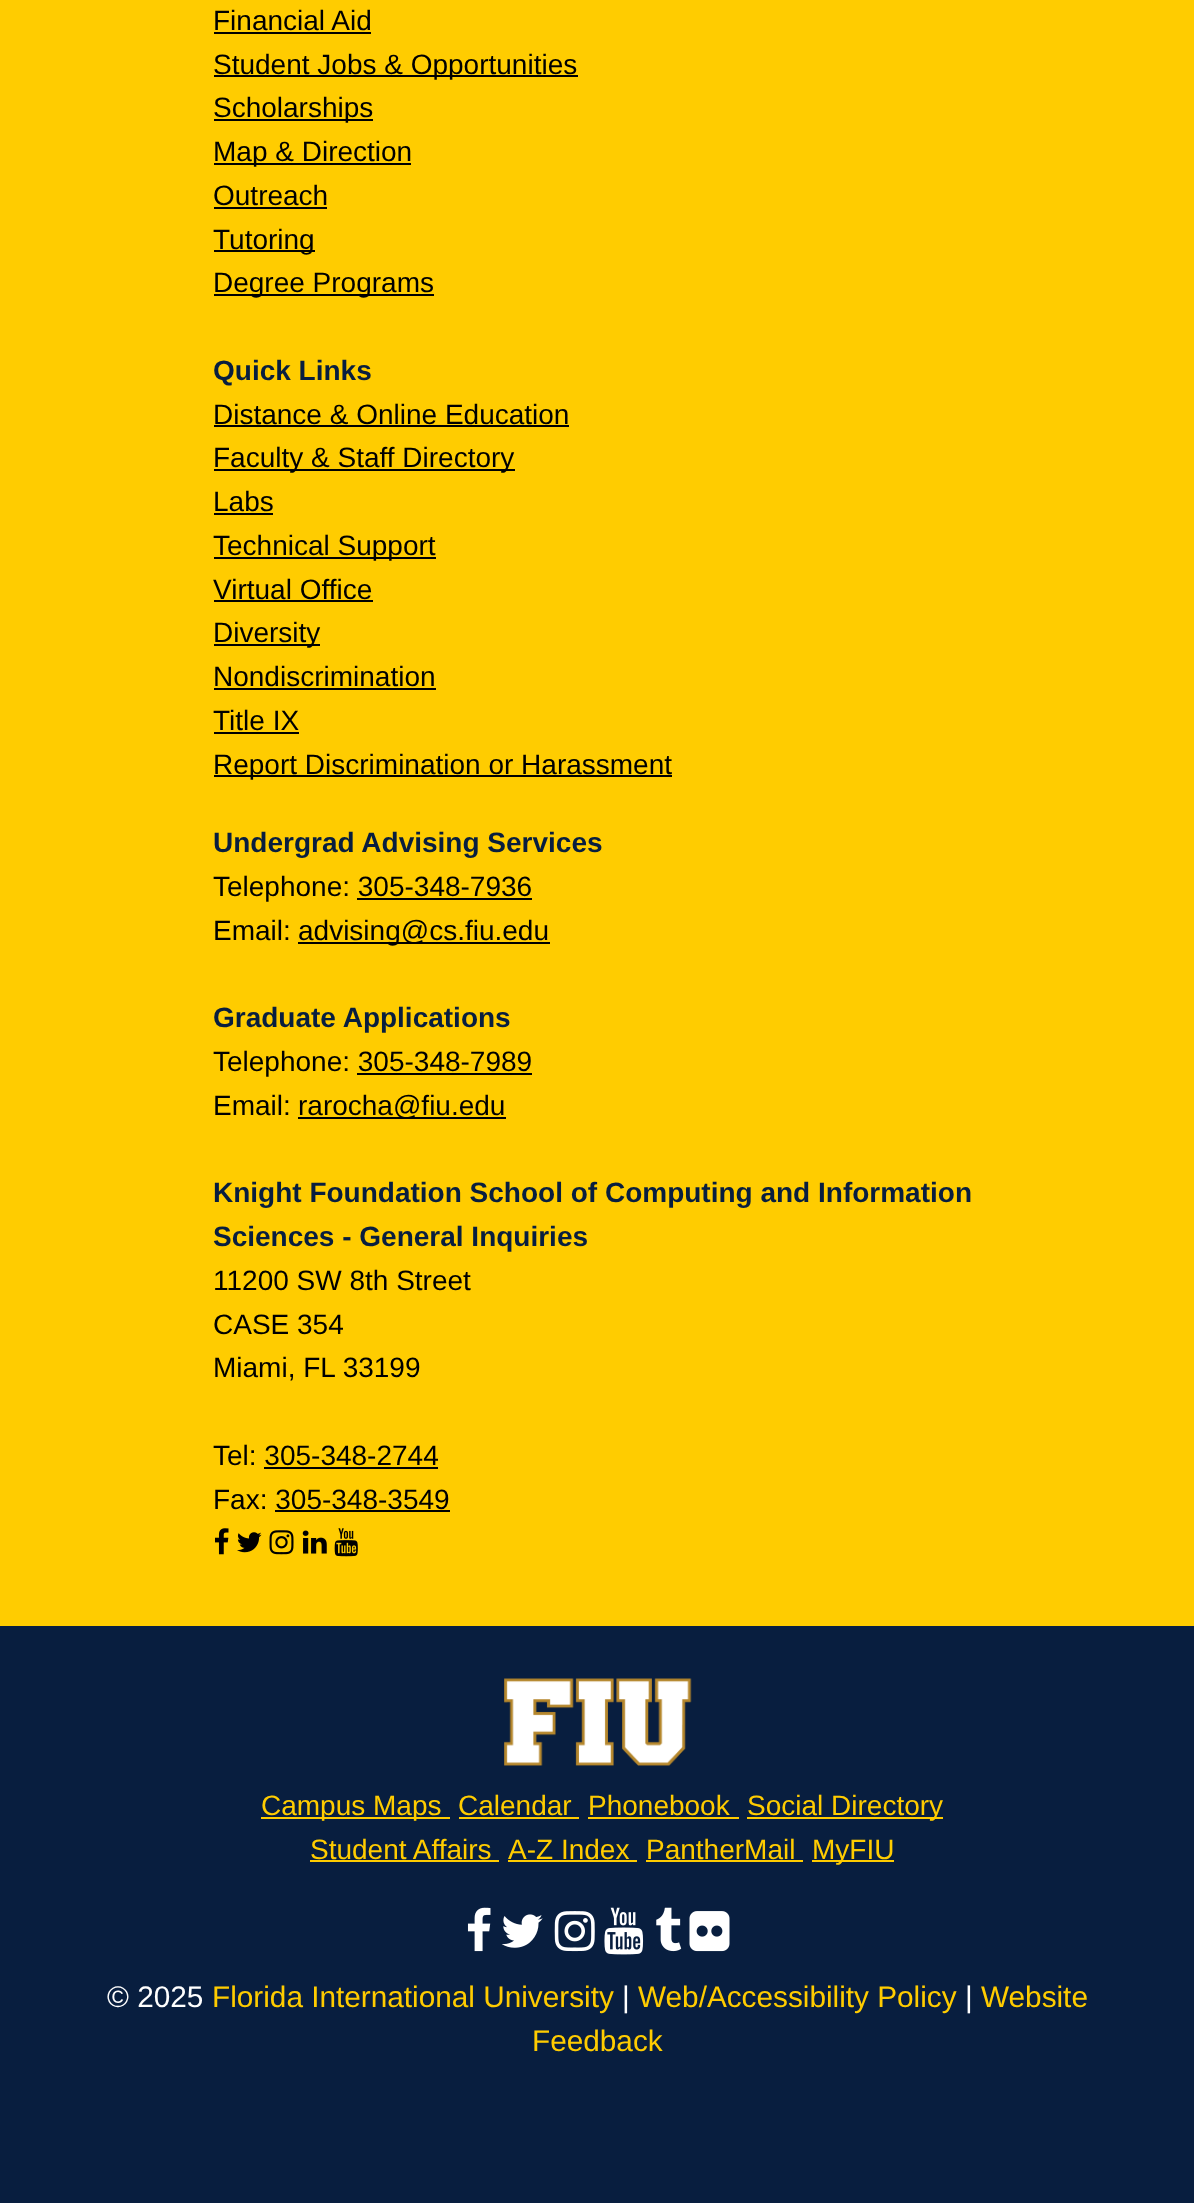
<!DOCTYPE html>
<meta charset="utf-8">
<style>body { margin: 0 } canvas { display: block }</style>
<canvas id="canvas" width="1194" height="2203"></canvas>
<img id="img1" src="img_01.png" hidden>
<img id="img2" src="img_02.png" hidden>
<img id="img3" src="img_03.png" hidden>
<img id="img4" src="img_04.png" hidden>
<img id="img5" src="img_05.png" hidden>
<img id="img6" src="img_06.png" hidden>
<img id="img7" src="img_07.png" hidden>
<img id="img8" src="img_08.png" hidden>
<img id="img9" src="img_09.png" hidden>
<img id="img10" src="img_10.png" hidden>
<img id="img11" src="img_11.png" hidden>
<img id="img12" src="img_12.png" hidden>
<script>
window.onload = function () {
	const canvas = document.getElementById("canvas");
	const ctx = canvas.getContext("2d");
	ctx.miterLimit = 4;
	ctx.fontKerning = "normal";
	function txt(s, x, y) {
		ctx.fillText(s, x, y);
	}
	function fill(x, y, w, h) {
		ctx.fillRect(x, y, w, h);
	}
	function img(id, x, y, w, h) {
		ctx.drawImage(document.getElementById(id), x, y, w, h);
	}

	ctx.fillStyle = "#FFCC00";
	fill(0, 0, 1194, 2203);
	ctx.fillStyle = "#000000";
	fill(214, 32, 157, 2);
	fill(214, 75, 364, 2);
	fill(214, 119, 159, 2);
	fill(214, 163, 197, 2);
	fill(214, 207, 113, 2);
	fill(214, 250, 101, 2);
	fill(214, 294, 220, 2);
	fill(214, 425, 355, 2);
	fill(214, 469, 301, 2);
	fill(214, 513, 59, 2);
	fill(214, 557, 222, 2);
	fill(214, 600, 159, 2);
	fill(214, 644, 106, 2);
	fill(214, 688, 222, 2);
	fill(214, 732, 85, 2);
	fill(214, 775, 458, 2);
	fill(357, 898, 175, 2);
	fill(298, 942, 252, 2);
	fill(357, 1073, 175, 2);
	fill(298, 1117, 208, 2);
	fill(264, 1467, 174, 2);
	fill(275, 1510, 175, 2);
	img("img1", 215, 1528, 14, 27);
	img("img2", 237, 1532, 25, 21);
	img("img3", 269, 1530, 25, 25);
	img("img4", 302, 1530, 25, 24);
	img("img5", 334, 1528, 24, 29);
	ctx.fillStyle = "#081E3F";
	fill(0, 1626, 1194, 577);
	img("img6", 504, 1678, 188, 88);
	ctx.fillStyle = "#FFCC00";
	fill(261, 1817, 189, 2);
	fill(459, 1817, 120, 2);
	fill(588, 1817, 151, 2);
	fill(747, 1817, 196, 2);
	fill(310, 1860, 189, 2);
	fill(508, 1860, 129, 2);
	fill(646, 1860, 157, 2);
	fill(812, 1860, 82, 2);
	img("img7", 467, 1907, 24, 45);
	img("img8", 501, 1914, 42, 34);
	img("img9", 554, 1911, 41, 41);
	img("img10", 604, 1907, 40, 48);
	img("img11", 656, 1907, 26, 45);
	img("img12", 689, 1911, 41, 41);
	ctx.font = "28px Liberation Sans";
	ctx.fillStyle = "#000000";
	txt("Financial Aid", 213, 30);
	txt("Student Jobs & Opportunities", 213, 74);
	txt("Scholarships", 213, 117);
	txt("Map & Direction", 213, 161);
	txt("Outreach", 213, 205);
	txt("Tutoring", 213, 249);
	txt("Degree Programs", 213, 292);
	ctx.font = "bold 28px Liberation Sans";
	ctx.fillStyle = "#081E3F";
	txt("Quick Links", 213, 380);
	ctx.font = "28px Liberation Sans";
	ctx.fillStyle = "#000000";
	txt("Distance & Online Education", 213, 424);
	txt("Faculty & Staff Directory", 213, 467);
	txt("Labs", 213, 511);
	txt("Technical Support", 213, 555);
	txt("Virtual Office", 213, 599);
	txt("Diversity", 213, 642);
	txt("Nondiscrimination", 213, 686);
	txt("Title IX", 213, 730);
	txt("Report Discrimination or Harassment", 213, 774);
	ctx.font = "bold 28px Liberation Sans";
	ctx.fillStyle = "#081E3F";
	txt("Undergrad Advising Services", 213, 852);
	ctx.font = "28px Liberation Sans";
	ctx.fillStyle = "#000000";
	txt("Telephone: 305-348-7936", 213, 896);
	txt("Email:", 213, 940);
	txt("advising@cs.fiu.edu", 298, 940);
	ctx.font = "bold 28px Liberation Sans";
	ctx.fillStyle = "#081E3F";
	txt("Graduate Applications", 213, 1027);
	ctx.font = "28px Liberation Sans";
	ctx.fillStyle = "#000000";
	txt("Telephone: 305-348-7989", 213, 1071);
	txt("Email:", 213, 1115);
	txt("rarocha@fiu.edu", 298, 1115);
	ctx.font = "bold 28px Liberation Sans";
	ctx.fillStyle = "#081E3F";
	txt("Knight Foundation School of Computing and Information", 213, 1202);
	txt("Sciences - General Inquiries", 213, 1246);
	ctx.font = "28px Liberation Sans";
	ctx.fillStyle = "#000000";
	txt("11200 SW 8th Street", 213, 1290);
	txt("CASE 354", 213, 1334);
	txt("Miami, FL 33199", 213, 1377);
	txt("Tel: 305-348-2744", 213, 1465);
	txt("Fax: 305-348-3549", 213, 1509);
	ctx.fillStyle = "#FFCC00";
	txt("Campus Maps", 261, 1815);
	txt("Calendar", 458, 1815);
	txt("Phonebook", 588, 1815);
	txt("Social Directory", 747, 1815);
	txt("Student Affairs", 310, 1859);
	txt("A-Z Index", 508, 1859);
	txt("PantherMail", 646, 1859);
	txt("MyFIU", 812, 1859);
	ctx.font = "29.75px Liberation Sans";
	ctx.fillStyle = "#FFFFFF";
	txt("© 2025", 107, 2007);
	ctx.fillStyle = "#FFCC00";
	txt("Florida International University", 212, 2007);
	ctx.fillStyle = "#FFFFFF";
	txt("|", 622, 2007);
	ctx.fillStyle = "#FFCC00";
	txt("Web/Accessibility Policy", 638, 2007);
	ctx.fillStyle = "#FFFFFF";
	txt("|", 965, 2007);
	ctx.fillStyle = "#FFCC00";
	txt("Website", 981, 2007);
	txt("Feedback", 532, 2051);
};
</script>
